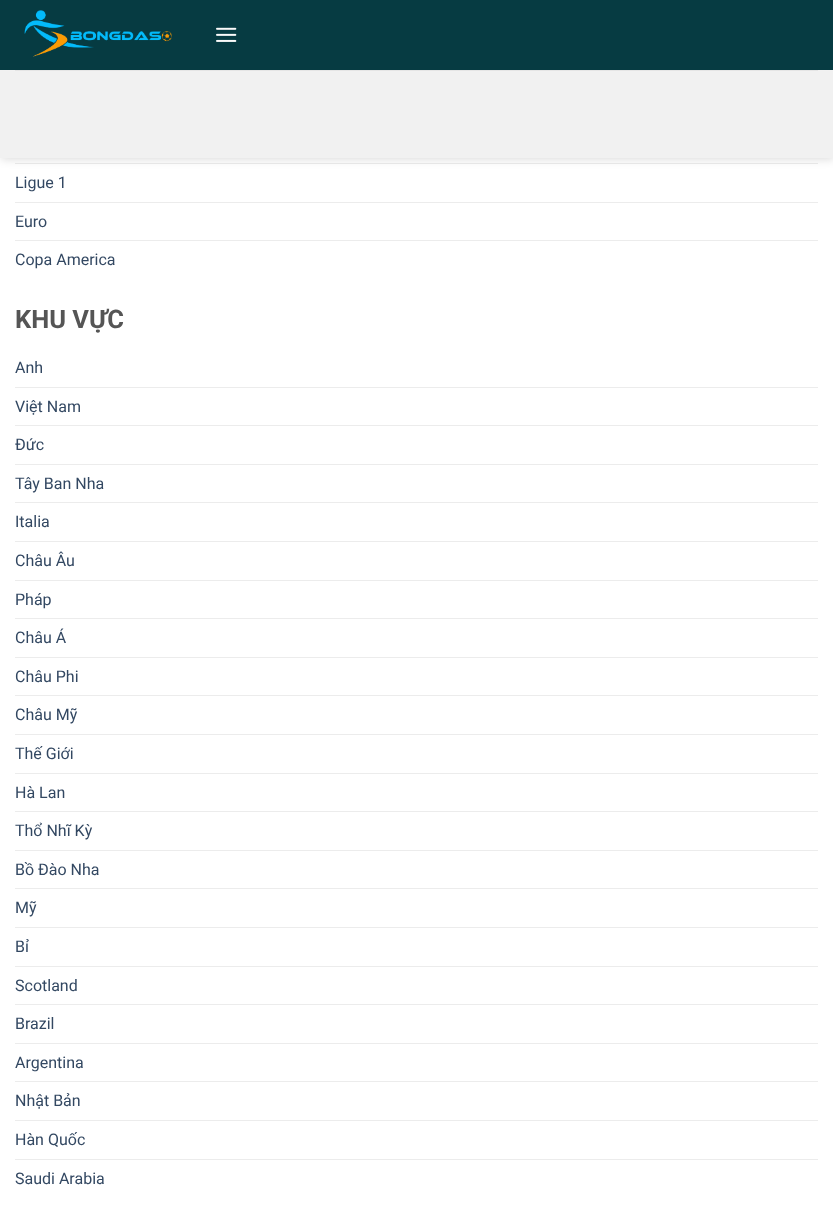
<!DOCTYPE html>
<meta charset="utf-8">
<style>body { margin: 0 } canvas { display: block }</style>
<canvas id="canvas" width="833" height="1231"></canvas>
<img id="img1" src="img_01.png" hidden>
<img id="img2" src="img_02.png" hidden>
<script>
window.onload = function () {
	const canvas = document.getElementById("canvas");
	const ctx = canvas.getContext("2d");
	ctx.miterLimit = 4;
	ctx.fontKerning = "normal";
	function txt(s, x, y) {
		ctx.fillText(s, x, y);
	}
	function fill(x, y, w, h) {
		ctx.fillRect(x, y, w, h);
	}
	function img(id, x, y, w, h) {
		ctx.drawImage(document.getElementById(id), x, y, w, h);
	}

	ctx.fillStyle = "#FFFFFF";
	fill(0, 0, 833, 1231);
	ctx.fillStyle = "#ECECEC";
	fill(15, 163, 803, 1);
	ctx.fillStyle = "rgba(0, 0, 0, 0.15)";
	ctx.filter = "blur(5px)";
	ctx.beginPath();
	ctx.rect(1, 1, 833, 158);
	ctx.fill();
	ctx.filter = "none";
	ctx.fillStyle = "#063B42";
	fill(0, 0, 833, 70);
	img("img1", 24, 10, 148, 47);
	img("img2", 216, 27, 21, 15);
	ctx.fillStyle = "#F1F1F1";
	fill(0, 70, 833, 88);
	ctx.fillStyle = "#E5E5E5";
	fill(15, 70, 803, 1);
	ctx.fillStyle = "#ECECEC";
	fill(15, 202, 803, 1);
	fill(15, 240, 803, 1);
	fill(15, 387, 803, 1);
	fill(15, 425, 803, 1);
	fill(15, 464, 803, 1);
	fill(15, 502, 803, 1);
	fill(15, 541, 803, 1);
	fill(15, 580, 803, 1);
	fill(15, 618, 803, 1);
	fill(15, 657, 803, 1);
	fill(15, 695, 803, 1);
	fill(15, 734, 803, 1);
	fill(15, 773, 803, 1);
	fill(15, 811, 803, 1);
	fill(15, 850, 803, 1);
	fill(15, 888, 803, 1);
	fill(15, 927, 803, 1);
	fill(15, 966, 803, 1);
	fill(15, 1004, 803, 1);
	fill(15, 1043, 803, 1);
	fill(15, 1081, 803, 1);
	fill(15, 1120, 803, 1);
	fill(15, 1159, 803, 1);
	ctx.font = "16px Roboto";
	ctx.fillStyle = "#334862";
	txt("Ligue 1", 15, 188);
	txt("Euro", 15, 227);
	txt("Copa America", 15, 265);
	ctx.font = "bold 25.5px Roboto";
	ctx.fillStyle = "#555555";
	txt("KHU VỰC", 15, 328);
	ctx.font = "16px Roboto";
	ctx.fillStyle = "#334862";
	txt("Anh", 15, 373);
	txt("Việt Nam", 15, 412);
	txt("Đức", 15, 450);
	txt("Tây Ban Nha", 15, 489);
	txt("Italia", 15, 527);
	txt("Châu Âu", 15, 566);
	txt("Pháp", 15, 605);
	txt("Châu Á", 15, 643);
	txt("Châu Phi", 15, 682);
	txt("Châu Mỹ", 15, 720);
	txt("Thế Giới", 15, 759);
	txt("Hà Lan", 15, 798);
	txt("Thổ Nhĩ Kỳ", 15, 836);
	txt("Bồ Đào Nha", 15, 875);
	txt("Mỹ", 15, 913);
	txt("Bỉ", 15, 952);
	txt("Scotland", 15, 991);
	txt("Brazil", 15, 1029);
	txt("Argentina", 15, 1068);
	txt("Nhật Bản", 15, 1106);
	txt("Hàn Quốc", 15, 1145);
	txt("Saudi Arabia", 15, 1184);
};
</script>
